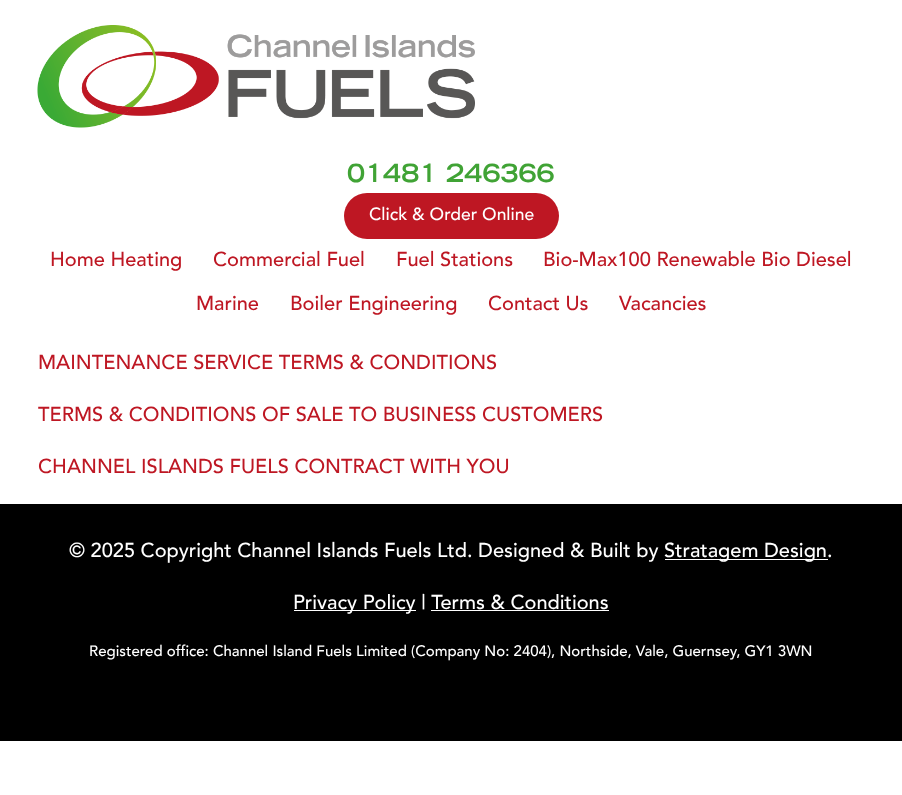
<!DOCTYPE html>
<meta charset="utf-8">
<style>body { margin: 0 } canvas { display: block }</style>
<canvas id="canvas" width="902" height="795"></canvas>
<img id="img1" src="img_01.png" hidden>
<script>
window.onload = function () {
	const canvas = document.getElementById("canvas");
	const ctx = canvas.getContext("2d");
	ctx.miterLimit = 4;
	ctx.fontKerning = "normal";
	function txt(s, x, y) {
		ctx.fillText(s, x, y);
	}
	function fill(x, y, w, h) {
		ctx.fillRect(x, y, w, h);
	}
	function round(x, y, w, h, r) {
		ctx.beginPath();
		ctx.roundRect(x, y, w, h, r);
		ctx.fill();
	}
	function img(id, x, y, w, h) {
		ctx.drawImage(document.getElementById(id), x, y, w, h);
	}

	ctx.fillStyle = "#FFFFFF";
	fill(0, 0, 902, 795);
	img("img1", 37, 25, 438, 103);
	ctx.fillStyle = "#BE1723";
	round(344, 193, 215, 46, 23);
	ctx.fillStyle = "#000000";
	fill(0, 504, 902, 237);
	ctx.fillStyle = "#FFFFFF";
	fill(665, 559, 163, 1);
	fill(294, 610, 122, 1);
	fill(431, 610, 178, 1);
	ctx.font = "bold 25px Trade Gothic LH";
	ctx.fillStyle = "#40A335";
	txt("01481 246366", 347, 182);
	ctx.font = "500 17.5px Avenir";
	ctx.fillStyle = "#FFFFFF";
	txt("Click & Order Online", 369, 220);
	ctx.font = "500 20px Avenir";
	ctx.fillStyle = "#BE1723";
	txt("Home Heating", 50, 266);
	txt("Commercial Fuel", 213, 266);
	txt("Fuel Stations", 396, 266);
	txt("Bio-Max100 Renewable Bio Diesel", 543, 266);
	txt("Marine", 196, 310);
	txt("Boiler Engineering", 290, 310);
	txt("Contact Us", 488, 310);
	txt("Vacancies", 619, 310);
	txt("MAINTENANCE SERVICE TERMS & CONDITIONS", 38, 369);
	txt("TERMS & CONDITIONS OF SALE TO BUSINESS CUSTOMERS", 38, 421);
	txt("CHANNEL ISLANDS FUELS CONTRACT WITH YOU", 38, 473);
	ctx.fillStyle = "#FFFFFF";
	txt("© 2025 Copyright Channel Islands Fuels Ltd. Designed & Built by", 69, 557);
	txt("Stratagem Design.", 664, 557);
	txt("Privacy Policy | Terms & Conditions", 293, 609);
	ctx.font = "500 15px Avenir";
	txt("Registered office: Channel Island Fuels Limited (Company No: 2404), Northside, Vale, Guernsey, GY1 3WN", 89, 656);
};
</script>
